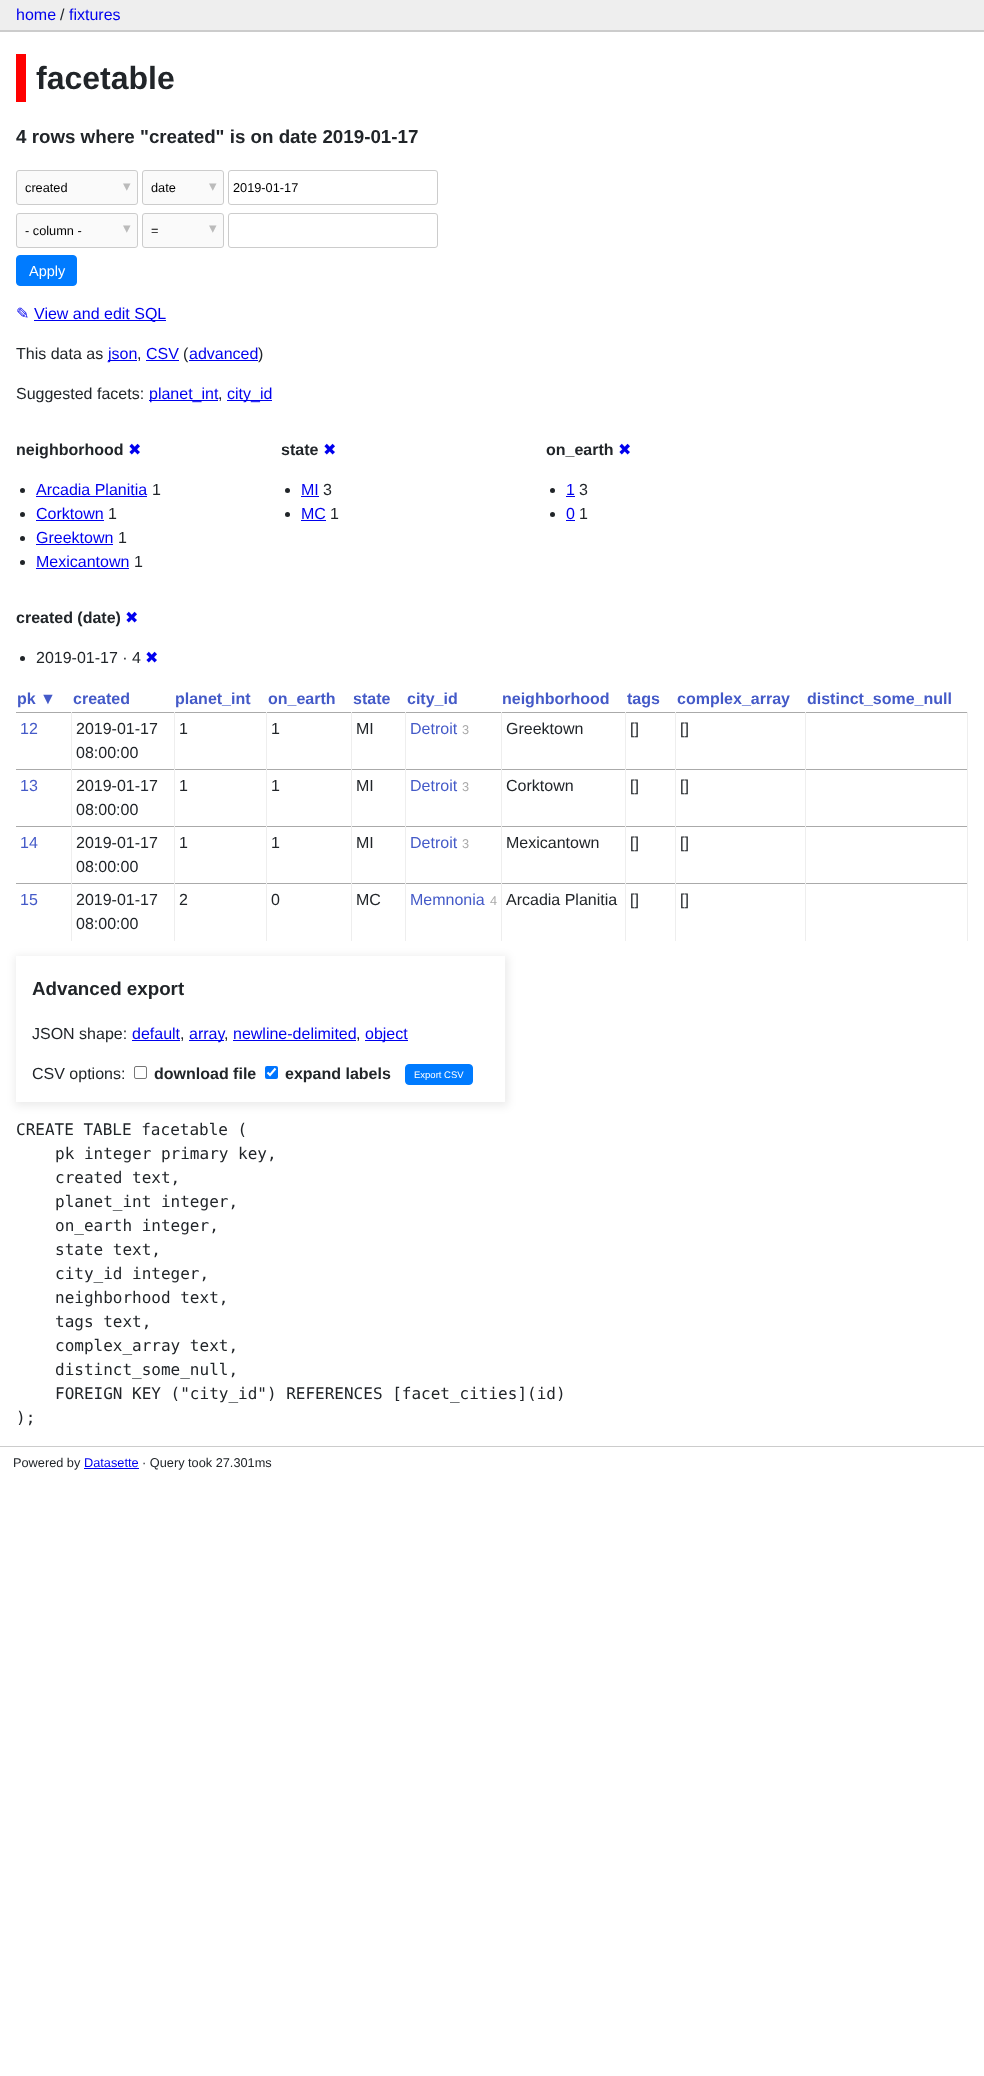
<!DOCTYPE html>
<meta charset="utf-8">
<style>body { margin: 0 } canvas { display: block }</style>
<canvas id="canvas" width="984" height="2076"></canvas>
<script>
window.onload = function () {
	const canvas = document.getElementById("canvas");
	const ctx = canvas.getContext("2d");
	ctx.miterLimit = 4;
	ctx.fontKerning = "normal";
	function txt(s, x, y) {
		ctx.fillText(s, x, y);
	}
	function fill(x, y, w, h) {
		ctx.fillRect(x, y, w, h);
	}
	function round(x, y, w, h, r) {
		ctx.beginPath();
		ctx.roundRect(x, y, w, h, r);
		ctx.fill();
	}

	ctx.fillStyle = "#FFFFFF";
	fill(0, 0, 984, 2076);
	ctx.fillStyle = "#EEEEEE";
	fill(0, 0, 984, 30);
	ctx.fillStyle = "#CCCCCC";
	fill(0, 30, 984, 2);
	ctx.fillStyle = "#FF0000";
	fill(16, 54, 10, 48);
	ctx.fillStyle = "#FAFAFA";
	ctx.beginPath();
	ctx.roundRect(16.5, 170.5, 121, 34, 2.5);
	ctx.fill();
	ctx.strokeStyle = "#CCCCCC";
	ctx.stroke();
	ctx.beginPath();
	ctx.roundRect(142.5, 170.5, 81, 34, 2.5);
	ctx.fill();
	ctx.stroke();
	ctx.beginPath();
	ctx.roundRect(228.5, 170.5, 209, 34, 2.5);
	ctx.stroke();
	ctx.beginPath();
	ctx.roundRect(16.5, 213.5, 121, 34, 2.5);
	ctx.fill();
	ctx.stroke();
	ctx.beginPath();
	ctx.roundRect(142.5, 213.5, 81, 34, 2.5);
	ctx.fill();
	ctx.stroke();
	ctx.beginPath();
	ctx.roundRect(228.5, 213.5, 209, 34, 2.5);
	ctx.stroke();
	ctx.fillStyle = "#007BFF";
	ctx.beginPath();
	ctx.roundRect(16.5, 255.5, 60, 30, 3.5);
	ctx.fill();
	ctx.strokeStyle = "#007BFF";
	ctx.stroke();
	ctx.fillStyle = "#0000EE";
	fill(34, 320, 132, 1);
	fill(108, 360, 29, 1);
	fill(146, 360, 33, 1);
	fill(189, 360, 69, 1);
	fill(149, 400, 69, 1);
	fill(227, 400, 45, 1);
	ctx.fillStyle = "#212529";
	ctx.beginPath();
	ctx.arc(22.5, 490.5, 2.5, 0, Math.PI * 2);
	ctx.fill();
	ctx.fillStyle = "#0000EE";
	fill(36, 496, 111, 1);
	ctx.fillStyle = "#212529";
	ctx.beginPath();
	ctx.arc(22.5, 514.5, 2.5, 0, Math.PI * 2);
	ctx.fill();
	ctx.fillStyle = "#0000EE";
	fill(36, 520, 68, 1);
	ctx.fillStyle = "#212529";
	ctx.beginPath();
	ctx.arc(22.5, 538.5, 2.5, 0, Math.PI * 2);
	ctx.fill();
	ctx.fillStyle = "#0000EE";
	fill(36, 544, 77, 1);
	ctx.fillStyle = "#212529";
	ctx.beginPath();
	ctx.arc(22.5, 562.5, 2.5, 0, Math.PI * 2);
	ctx.fill();
	ctx.fillStyle = "#0000EE";
	fill(36, 568, 93, 1);
	ctx.fillStyle = "#212529";
	ctx.beginPath();
	ctx.arc(287.5, 490.5, 2.5, 0, Math.PI * 2);
	ctx.fill();
	ctx.fillStyle = "#0000EE";
	fill(301, 496, 18, 1);
	ctx.fillStyle = "#212529";
	ctx.beginPath();
	ctx.arc(287.5, 514.5, 2.5, 0, Math.PI * 2);
	ctx.fill();
	ctx.fillStyle = "#0000EE";
	fill(301, 520, 25, 1);
	ctx.fillStyle = "#212529";
	ctx.beginPath();
	ctx.arc(552.5, 490.5, 2.5, 0, Math.PI * 2);
	ctx.fill();
	ctx.fillStyle = "#0000EE";
	fill(566, 496, 9, 1);
	ctx.fillStyle = "#212529";
	ctx.beginPath();
	ctx.arc(552.5, 514.5, 2.5, 0, Math.PI * 2);
	ctx.fill();
	ctx.fillStyle = "#0000EE";
	fill(566, 520, 9, 1);
	ctx.fillStyle = "#212529";
	ctx.beginPath();
	ctx.arc(22.5, 658.5, 2.5, 0, Math.PI * 2);
	ctx.fill();
	ctx.fillStyle = "#AAAAAA";
	fill(16, 712, 952, 1);
	fill(16, 769, 952, 1);
	fill(16, 826, 952, 1);
	fill(16, 883, 952, 1);
	ctx.fillStyle = "#EEEEEE";
	fill(967, 883, 1, 58);
	fill(967, 826, 1, 58);
	fill(967, 769, 1, 58);
	fill(967, 712, 1, 58);
	fill(71, 883, 1, 58);
	fill(71, 826, 1, 58);
	fill(71, 769, 1, 58);
	fill(71, 712, 1, 58);
	fill(174, 883, 1, 58);
	fill(174, 826, 1, 58);
	fill(174, 769, 1, 58);
	fill(174, 712, 1, 58);
	fill(266, 883, 1, 58);
	fill(266, 826, 1, 58);
	fill(266, 769, 1, 58);
	fill(266, 712, 1, 58);
	fill(351, 883, 1, 58);
	fill(351, 826, 1, 58);
	fill(351, 769, 1, 58);
	fill(351, 712, 1, 58);
	fill(405, 883, 1, 58);
	fill(405, 826, 1, 58);
	fill(405, 769, 1, 58);
	fill(405, 712, 1, 58);
	fill(501, 883, 1, 58);
	fill(501, 826, 1, 58);
	fill(501, 769, 1, 58);
	fill(501, 712, 1, 58);
	fill(625, 883, 1, 58);
	fill(625, 826, 1, 58);
	fill(625, 769, 1, 58);
	fill(625, 712, 1, 58);
	fill(675, 883, 1, 58);
	fill(675, 826, 1, 58);
	fill(675, 769, 1, 58);
	fill(675, 712, 1, 58);
	fill(805, 883, 1, 58);
	fill(805, 826, 1, 58);
	fill(805, 769, 1, 58);
	fill(805, 712, 1, 58);
	ctx.save();
	ctx.beginPath();
	ctx.moveTo(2, 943);
	ctx.lineTo(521, 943);
	ctx.lineTo(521, 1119);
	ctx.lineTo(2, 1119);
	ctx.closePath();
	ctx.moveTo(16, 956);
	ctx.lineTo(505, 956);
	ctx.lineTo(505, 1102);
	ctx.lineTo(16, 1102);
	ctx.closePath();
	ctx.clip("evenodd");
	ctx.fillStyle = "rgba(0, 0, 0, 0.08)";
	ctx.filter = "blur(4px)";
	ctx.beginPath();
	ctx.rect(15, 956, 493, 150);
	ctx.fill();
	ctx.filter = "none";
	ctx.restore();
	ctx.fillStyle = "#0000EE";
	fill(132, 1040, 48, 1);
	fill(189, 1040, 35, 1);
	fill(233, 1040, 123, 1);
	fill(365, 1040, 43, 1);
	ctx.beginPath();
	ctx.roundRect(134.5, 1066.5, 12, 12, 1.5);
	ctx.strokeStyle = "#767676";
	ctx.stroke();
	ctx.fillStyle = "#0075FF";
	round(265, 1066, 13, 13, 2);
	ctx.beginPath();
	ctx.moveTo(267.5, 1072.5);
	ctx.lineTo(270, 1075);
	ctx.lineTo(275.5, 1068.5);
	ctx.strokeStyle = "#FFFFFF";
	ctx.lineWidth = 2.1;
	ctx.stroke();
	ctx.fillStyle = "#007BFF";
	ctx.beginPath();
	ctx.roundRect(405.5, 1064.5, 67, 20, 3.5);
	ctx.fill();
	ctx.strokeStyle = "#007BFF";
	ctx.lineWidth = 1;
	ctx.stroke();
	ctx.fillStyle = "#CCCCCC";
	fill(0, 1446, 984, 1);
	ctx.fillStyle = "#0000EE";
	fill(84, 1468, 55, 1);
	ctx.font = "16px Liberation Sans";
	txt("home", 16, 20);
	ctx.fillStyle = "#212529";
	txt("/", 60, 20);
	ctx.fillStyle = "#0000EE";
	txt("fixtures", 69, 20);
	ctx.font = "bold 32px Liberation Sans";
	ctx.fillStyle = "#212529";
	txt("facetable", 36, 89);
	ctx.font = "bold 18.75px Liberation Sans";
	txt("4 rows where \"created\" is on date 2019-01-17", 16, 143);
	ctx.font = "12.75px Liberation Sans";
	ctx.fillStyle = "#000000";
	txt("created", 25, 192);
	ctx.font = "15px DejaVu Sans";
	ctx.fillStyle = "#BBBBBB";
	txt("▾", 123, 191);
	ctx.font = "12.75px Liberation Sans";
	ctx.fillStyle = "#000000";
	txt("date", 151, 192);
	ctx.font = "15px DejaVu Sans";
	ctx.fillStyle = "#BBBBBB";
	txt("▾", 209, 191);
	ctx.font = "12.75px Liberation Sans";
	ctx.fillStyle = "#000000";
	txt("2019-01-17", 233, 192);
	txt("- column -", 25, 235);
	ctx.font = "15px DejaVu Sans";
	ctx.fillStyle = "#BBBBBB";
	txt("▾", 123, 233);
	ctx.font = "12.75px Liberation Sans";
	ctx.fillStyle = "#000000";
	txt("=", 151, 235);
	ctx.font = "15px DejaVu Sans";
	ctx.fillStyle = "#BBBBBB";
	txt("▾", 209, 233);
	ctx.font = "14.5px Liberation Sans";
	ctx.fillStyle = "#FFFFFF";
	txt("Apply", 29, 276);
	ctx.font = "16px DejaVu Sans";
	ctx.fillStyle = "#0000EE";
	txt("✎", 16, 319);
	ctx.font = "16px Liberation Sans";
	txt("View and edit SQL", 34, 319);
	ctx.fillStyle = "#212529";
	txt("This data as", 16, 359);
	ctx.fillStyle = "#0000EE";
	txt("json", 108, 359);
	ctx.fillStyle = "#212529";
	txt(",", 137, 359);
	ctx.fillStyle = "#0000EE";
	txt("CSV", 146, 359);
	ctx.fillStyle = "#212529";
	txt("(", 183, 359);
	ctx.fillStyle = "#0000EE";
	txt("advanced", 189, 359);
	ctx.fillStyle = "#212529";
	txt(")", 258, 359);
	txt("Suggested facets:", 16, 399);
	ctx.fillStyle = "#0000EE";
	txt("planet_int", 149, 399);
	ctx.fillStyle = "#212529";
	txt(",", 218, 399);
	ctx.fillStyle = "#0000EE";
	txt("city_id", 227, 399);
	ctx.font = "bold 16px Liberation Sans";
	ctx.fillStyle = "#212529";
	txt("neighborhood", 16, 455);
	ctx.font = "16px DejaVu Sans";
	ctx.fillStyle = "#0000EE";
	txt("✖", 128, 455);
	ctx.font = "16px Liberation Sans";
	txt("Arcadia Planitia", 36, 495);
	ctx.fillStyle = "#212529";
	txt("1", 152, 495);
	ctx.fillStyle = "#0000EE";
	txt("Corktown", 36, 519);
	ctx.fillStyle = "#212529";
	txt("1", 108, 519);
	ctx.fillStyle = "#0000EE";
	txt("Greektown", 36, 543);
	ctx.fillStyle = "#212529";
	txt("1", 118, 543);
	ctx.fillStyle = "#0000EE";
	txt("Mexicantown", 36, 567);
	ctx.fillStyle = "#212529";
	txt("1", 134, 567);
	ctx.font = "bold 16px Liberation Sans";
	txt("state", 281, 455);
	ctx.font = "16px DejaVu Sans";
	ctx.fillStyle = "#0000EE";
	txt("✖", 323, 455);
	ctx.font = "16px Liberation Sans";
	txt("MI", 301, 495);
	ctx.fillStyle = "#212529";
	txt("3", 323, 495);
	ctx.fillStyle = "#0000EE";
	txt("MC", 301, 519);
	ctx.fillStyle = "#212529";
	txt("1", 330, 519);
	ctx.font = "bold 16px Liberation Sans";
	txt("on_earth", 546, 455);
	ctx.font = "16px DejaVu Sans";
	ctx.fillStyle = "#0000EE";
	txt("✖", 618, 455);
	ctx.font = "16px Liberation Sans";
	txt("1", 566, 495);
	ctx.fillStyle = "#212529";
	txt("3", 579, 495);
	ctx.fillStyle = "#0000EE";
	txt("0", 566, 519);
	ctx.fillStyle = "#212529";
	txt("1", 579, 519);
	ctx.font = "bold 16px Liberation Sans";
	txt("created (date)", 16, 623);
	ctx.font = "16px DejaVu Sans";
	ctx.fillStyle = "#0000EE";
	txt("✖", 125, 623);
	ctx.font = "16px Liberation Sans";
	ctx.fillStyle = "#212529";
	txt("2019-01-17 · 4", 36, 663);
	ctx.font = "16px DejaVu Sans";
	ctx.fillStyle = "#0000EE";
	txt("✖", 145, 663);
	ctx.font = "bold 16px Liberation Sans";
	ctx.fillStyle = "#445AC8";
	txt("pk ▼", 17, 704);
	txt("created", 73, 704);
	txt("planet_int", 175, 704);
	txt("on_earth", 268, 704);
	txt("state", 353, 704);
	txt("city_id", 407, 704);
	txt("neighborhood", 502, 704);
	txt("tags", 627, 704);
	txt("complex_array", 677, 704);
	txt("distinct_some_null", 807, 704);
	ctx.font = "16px Liberation Sans";
	txt("12", 20, 734);
	ctx.fillStyle = "#212529";
	txt("2019-01-17", 76, 734);
	txt("08:00:00", 76, 758);
	txt("1", 179, 734);
	txt("1", 271, 734);
	txt("MI", 356, 734);
	ctx.fillStyle = "#445AC8";
	txt("Detroit", 410, 734);
	ctx.font = "12.75px Liberation Sans";
	ctx.fillStyle = "#AAAAAA";
	txt("3", 462, 734);
	ctx.font = "16px Liberation Sans";
	ctx.fillStyle = "#212529";
	txt("Greektown", 506, 734);
	txt("[]", 630, 734);
	txt("[]", 680, 734);
	ctx.fillStyle = "#445AC8";
	txt("13", 20, 791);
	ctx.fillStyle = "#212529";
	txt("2019-01-17", 76, 791);
	txt("08:00:00", 76, 815);
	txt("1", 179, 791);
	txt("1", 271, 791);
	txt("MI", 356, 791);
	ctx.fillStyle = "#445AC8";
	txt("Detroit", 410, 791);
	ctx.font = "12.75px Liberation Sans";
	ctx.fillStyle = "#AAAAAA";
	txt("3", 462, 791);
	ctx.font = "16px Liberation Sans";
	ctx.fillStyle = "#212529";
	txt("Corktown", 506, 791);
	txt("[]", 630, 791);
	txt("[]", 680, 791);
	ctx.fillStyle = "#445AC8";
	txt("14", 20, 848);
	ctx.fillStyle = "#212529";
	txt("2019-01-17", 76, 848);
	txt("08:00:00", 76, 872);
	txt("1", 179, 848);
	txt("1", 271, 848);
	txt("MI", 356, 848);
	ctx.fillStyle = "#445AC8";
	txt("Detroit", 410, 848);
	ctx.font = "12.75px Liberation Sans";
	ctx.fillStyle = "#AAAAAA";
	txt("3", 462, 848);
	ctx.font = "16px Liberation Sans";
	ctx.fillStyle = "#212529";
	txt("Mexicantown", 506, 848);
	txt("[]", 630, 848);
	txt("[]", 680, 848);
	ctx.fillStyle = "#445AC8";
	txt("15", 20, 905);
	ctx.fillStyle = "#212529";
	txt("2019-01-17", 76, 905);
	txt("08:00:00", 76, 929);
	txt("2", 179, 905);
	txt("0", 271, 905);
	txt("MC", 356, 905);
	ctx.fillStyle = "#445AC8";
	txt("Memnonia", 410, 905);
	ctx.font = "12.75px Liberation Sans";
	ctx.fillStyle = "#AAAAAA";
	txt("4", 490, 905);
	ctx.font = "16px Liberation Sans";
	ctx.fillStyle = "#212529";
	txt("Arcadia Planitia", 506, 905);
	txt("[]", 630, 905);
	txt("[]", 680, 905);
	ctx.font = "bold 18.75px Liberation Sans";
	txt("Advanced export", 32, 995);
	ctx.font = "16px Liberation Sans";
	txt("JSON shape:", 32, 1039);
	ctx.fillStyle = "#0000EE";
	txt("default", 132, 1039);
	ctx.fillStyle = "#212529";
	txt(",", 180, 1039);
	ctx.fillStyle = "#0000EE";
	txt("array", 189, 1039);
	ctx.fillStyle = "#212529";
	txt(",", 224, 1039);
	ctx.fillStyle = "#0000EE";
	txt("newline-delimited", 233, 1039);
	ctx.fillStyle = "#212529";
	txt(",", 356, 1039);
	ctx.fillStyle = "#0000EE";
	txt("object", 365, 1039);
	ctx.fillStyle = "#212529";
	txt("CSV options:", 32, 1079);
	ctx.font = "bold 16px Liberation Sans";
	txt("download file", 154, 1079);
	txt("expand labels", 285, 1079);
	ctx.font = "9.5px Liberation Sans";
	ctx.fillStyle = "#FFFFFF";
	txt("Export CSV", 414, 1078);
	ctx.font = "16px DejaVu Sans Mono";
	ctx.fillStyle = "#212529";
	txt("CREATE TABLE facetable (", 16, 1135);
	txt("pk integer primary key,", 55, 1159);
	txt("created text,", 55, 1183);
	txt("planet_int integer,", 55, 1207);
	txt("on_earth integer,", 55, 1231);
	txt("state text,", 55, 1255);
	txt("city_id integer,", 55, 1279);
	txt("neighborhood text,", 55, 1303);
	txt("tags text,", 55, 1327);
	txt("complex_array text,", 55, 1351);
	txt("distinct_some_null,", 55, 1375);
	txt("FOREIGN KEY (\"city_id\") REFERENCES [facet_cities](id)", 55, 1399);
	txt(");", 16, 1423);
	ctx.font = "12.75px Liberation Sans";
	txt("Powered by", 13, 1467);
	ctx.fillStyle = "#0000EE";
	txt("Datasette", 84, 1467);
	ctx.fillStyle = "#212529";
	txt("· Query took 27.301ms", 142, 1467);
};
</script>
